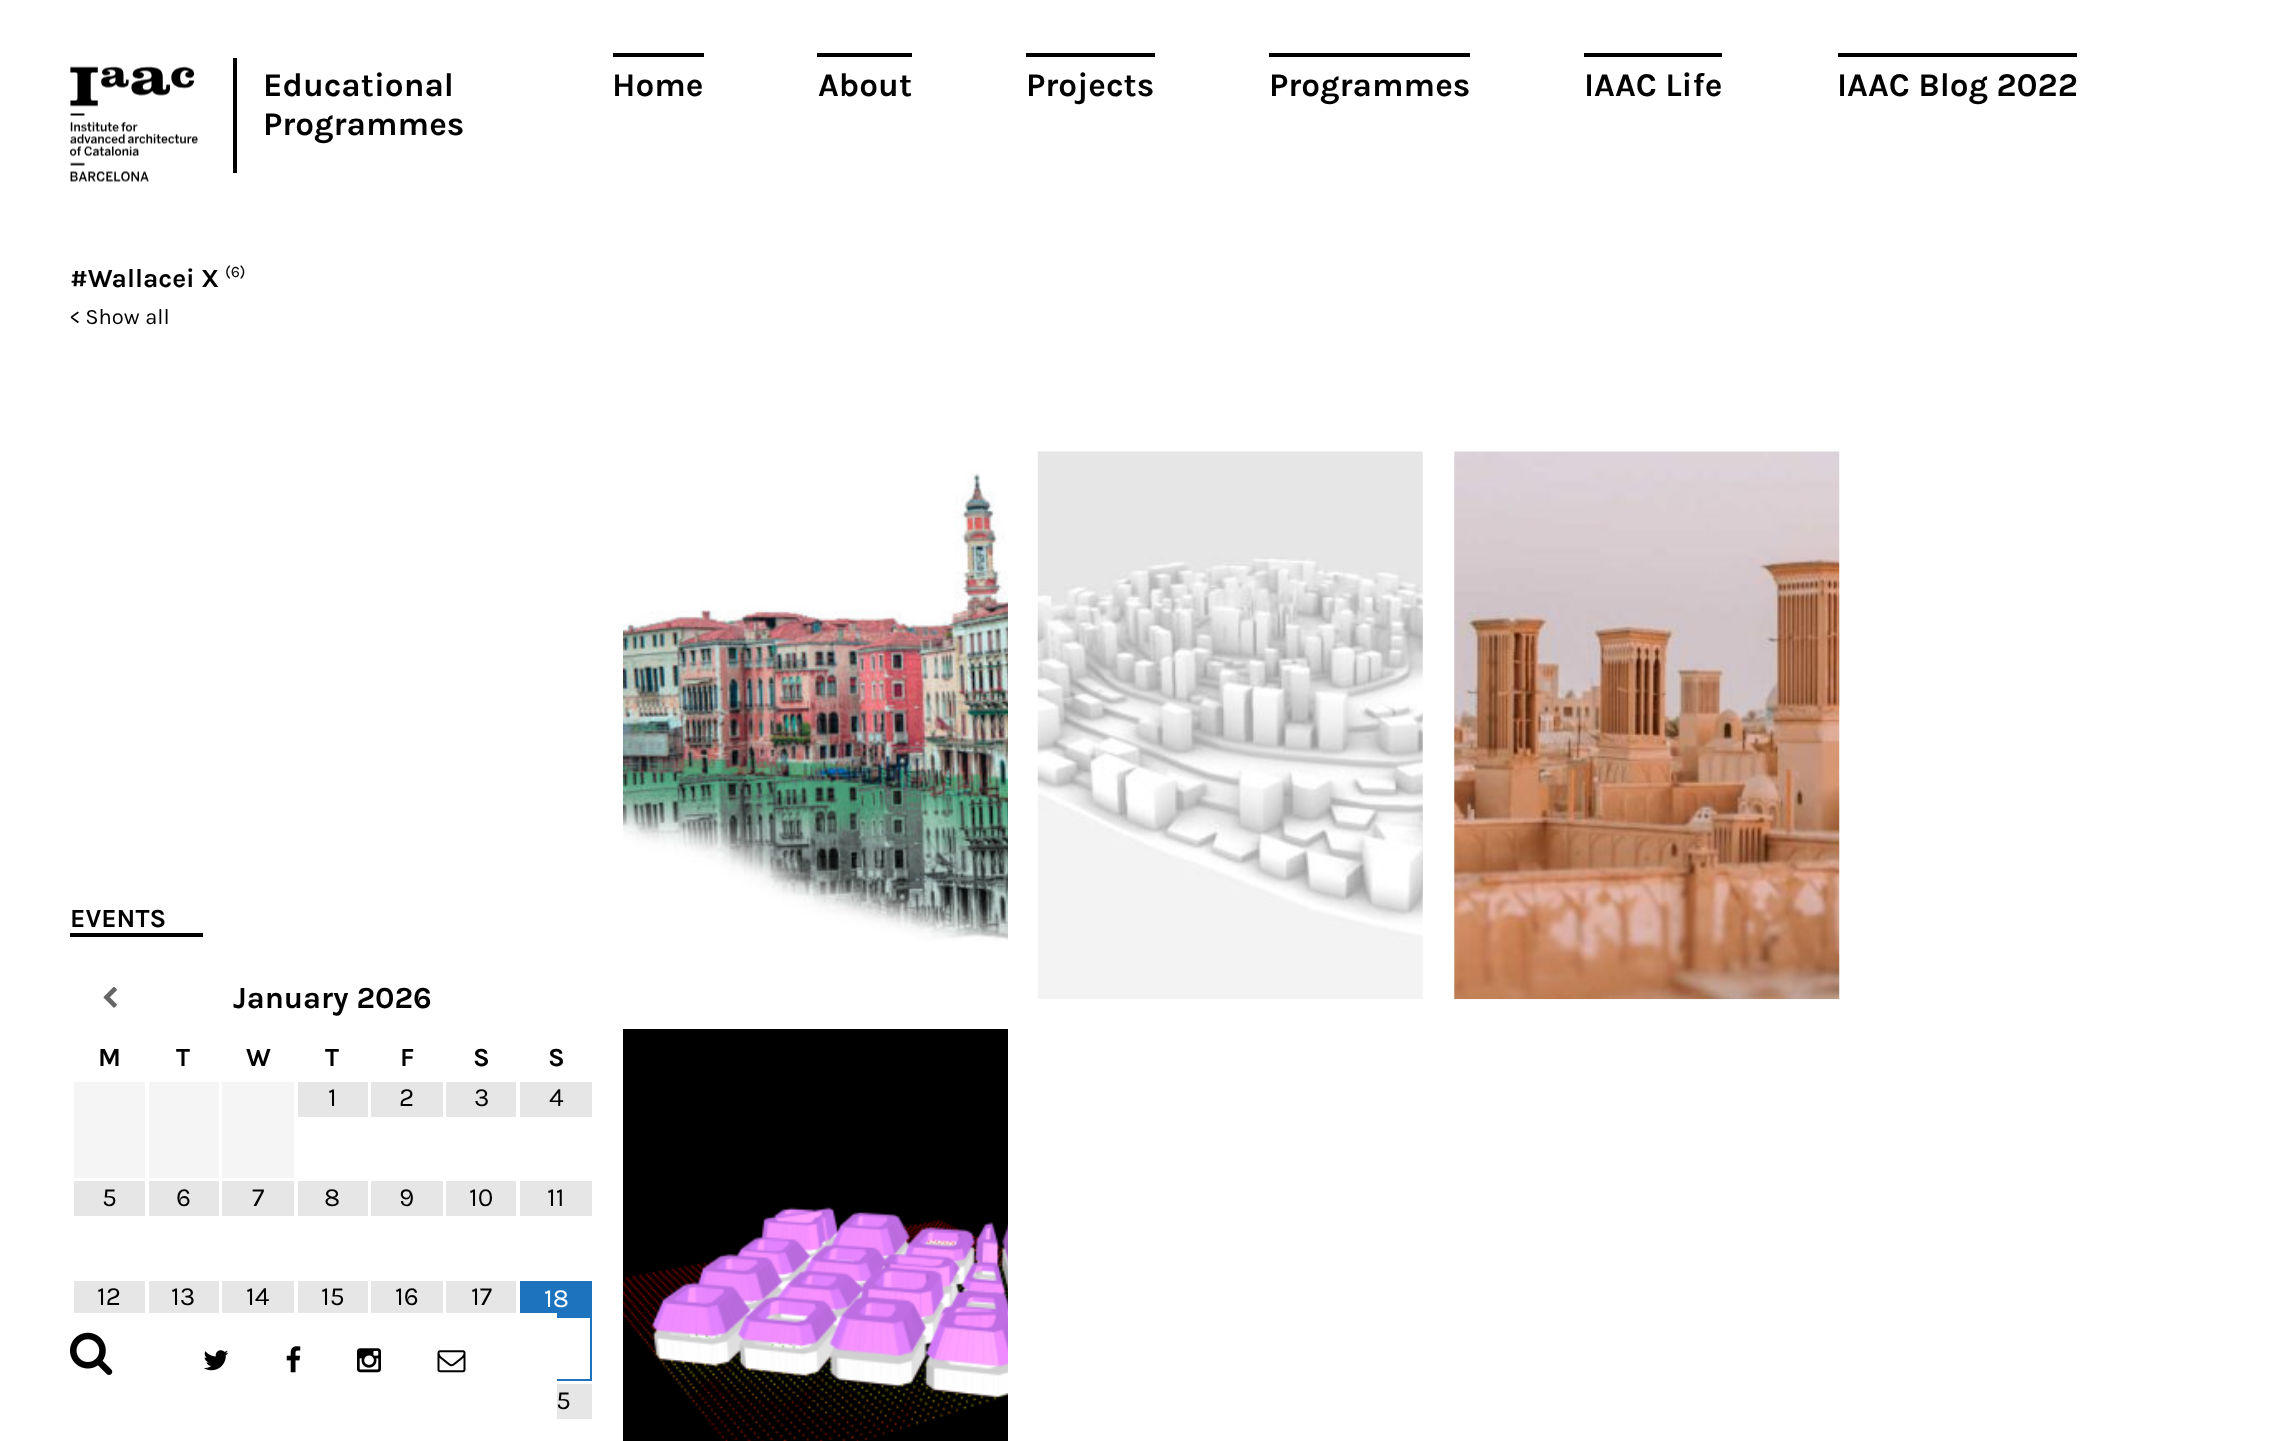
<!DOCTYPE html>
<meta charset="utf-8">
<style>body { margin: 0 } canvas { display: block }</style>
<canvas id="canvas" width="2288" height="1441"></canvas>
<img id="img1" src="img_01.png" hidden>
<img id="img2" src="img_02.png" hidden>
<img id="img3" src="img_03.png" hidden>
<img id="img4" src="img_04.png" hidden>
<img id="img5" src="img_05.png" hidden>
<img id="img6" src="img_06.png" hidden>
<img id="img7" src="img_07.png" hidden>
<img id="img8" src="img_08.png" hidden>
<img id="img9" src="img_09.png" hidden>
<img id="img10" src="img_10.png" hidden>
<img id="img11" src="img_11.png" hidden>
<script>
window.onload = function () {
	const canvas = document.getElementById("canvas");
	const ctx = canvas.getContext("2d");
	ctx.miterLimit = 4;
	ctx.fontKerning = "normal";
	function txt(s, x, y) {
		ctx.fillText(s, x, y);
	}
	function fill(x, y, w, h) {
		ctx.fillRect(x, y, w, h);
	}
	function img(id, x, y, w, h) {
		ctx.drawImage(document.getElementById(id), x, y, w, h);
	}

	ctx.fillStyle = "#FFFFFF";
	fill(0, 0, 2288, 1441);
	img("img1", 70, 66, 128, 116);
	ctx.fillStyle = "#000000";
	fill(233, 58, 4, 115);
	fill(613, 53, 91, 4);
	fill(817, 53, 95, 4);
	fill(1026, 53, 129, 4);
	fill(1269, 53, 201, 4);
	fill(1584, 53, 138, 4);
	fill(1838, 53, 239, 4);
	fill(70, 933, 133, 4);
	img("img2", 103, 986, 14, 22);
	ctx.fillStyle = "#F5F5F5";
	fill(74, 1082, 71, 96);
	fill(149, 1082, 70, 96);
	fill(222, 1082, 72, 96);
	ctx.fillStyle = "#E6E6E6";
	fill(298, 1082, 70, 35);
	fill(371, 1082, 72, 35);
	fill(446, 1082, 70, 35);
	fill(520, 1082, 72, 35);
	fill(74, 1181, 71, 35);
	fill(149, 1181, 70, 35);
	fill(222, 1181, 72, 35);
	fill(298, 1181, 70, 35);
	fill(371, 1181, 72, 35);
	fill(446, 1181, 70, 35);
	fill(520, 1181, 72, 35);
	fill(74, 1281, 71, 32);
	fill(149, 1281, 70, 32);
	fill(222, 1281, 72, 32);
	fill(298, 1281, 70, 32);
	fill(371, 1281, 72, 32);
	fill(446, 1281, 70, 32);
	ctx.strokeStyle = "#1E73BE";
	ctx.lineWidth = 2;
	ctx.strokeRect(521, 1282, 70, 98);
	ctx.fillStyle = "#1E73BE";
	fill(522, 1283, 68, 35);
	ctx.fillStyle = "#E6E6E6";
	fill(557, 1384, 35, 35);
	img("img3", 623, 470, 385, 471);
	img("img4", 1037, 451, 386, 548);
	img("img5", 1454, 451, 386, 549);
	img("img6", 623, 1029, 385, 412);
	ctx.fillStyle = "#FFFFFF";
	fill(520, 1313, 37, 68);
	img("img7", 70, 1332, 43, 43);
	img("img8", 203, 1350, 26, 21);
	img("img9", 286, 1346, 15, 27);
	img("img10", 357, 1348, 24, 25);
	img("img11", 437, 1350, 29, 23);
	ctx.font = "bold 33.25px Karla";
	ctx.fillStyle = "#000000";
	txt("Educational", 263, 96);
	txt("Programmes", 263, 135);
	txt("Home", 612, 96);
	txt("About", 818, 96);
	txt("Projects", 1026, 96);
	txt("Programmes", 1269, 96);
	txt("IAAC Life", 1584, 96);
	txt("IAAC Blog 2022", 1837, 96);
	ctx.font = "bold 26.25px Karla";
	txt("#Wallacei X", 70, 287);
	ctx.font = "16px Karla";
	txt("(6)", 225, 277);
	ctx.font = "22px Karla";
	txt("< Show all", 70, 324);
	ctx.font = "bold 26.25px Karla";
	txt("EVENTS", 70, 927);
	ctx.font = "bold 30.75px Karla";
	txt("January 2026", 233, 1008);
	ctx.font = "bold 26.25px Karla";
	txt("M", 98, 1066);
	txt("T", 176, 1066);
	txt("W", 246, 1066);
	txt("T", 325, 1066);
	txt("F", 400, 1066);
	txt("S", 473, 1066);
	txt("S", 548, 1066);
	ctx.font = "26.25px Karla";
	txt("1", 328, 1106);
	txt("2", 399, 1106);
	txt("3", 474, 1106);
	txt("4", 549, 1106);
	txt("5", 102, 1206);
	txt("6", 176, 1206);
	txt("7", 252, 1206);
	txt("8", 324, 1206);
	txt("9", 399, 1206);
	txt("10", 469, 1206);
	txt("11", 547, 1206);
	txt("12", 97, 1305);
	txt("13", 171, 1305);
	txt("14", 246, 1305);
	txt("15", 321, 1305);
	txt("16", 395, 1305);
	txt("17", 471, 1305);
	ctx.fillStyle = "#FFFFFF";
	txt("18", 544, 1307);
	ctx.fillStyle = "#000000";
	txt("5", 556, 1409);
};
</script>
